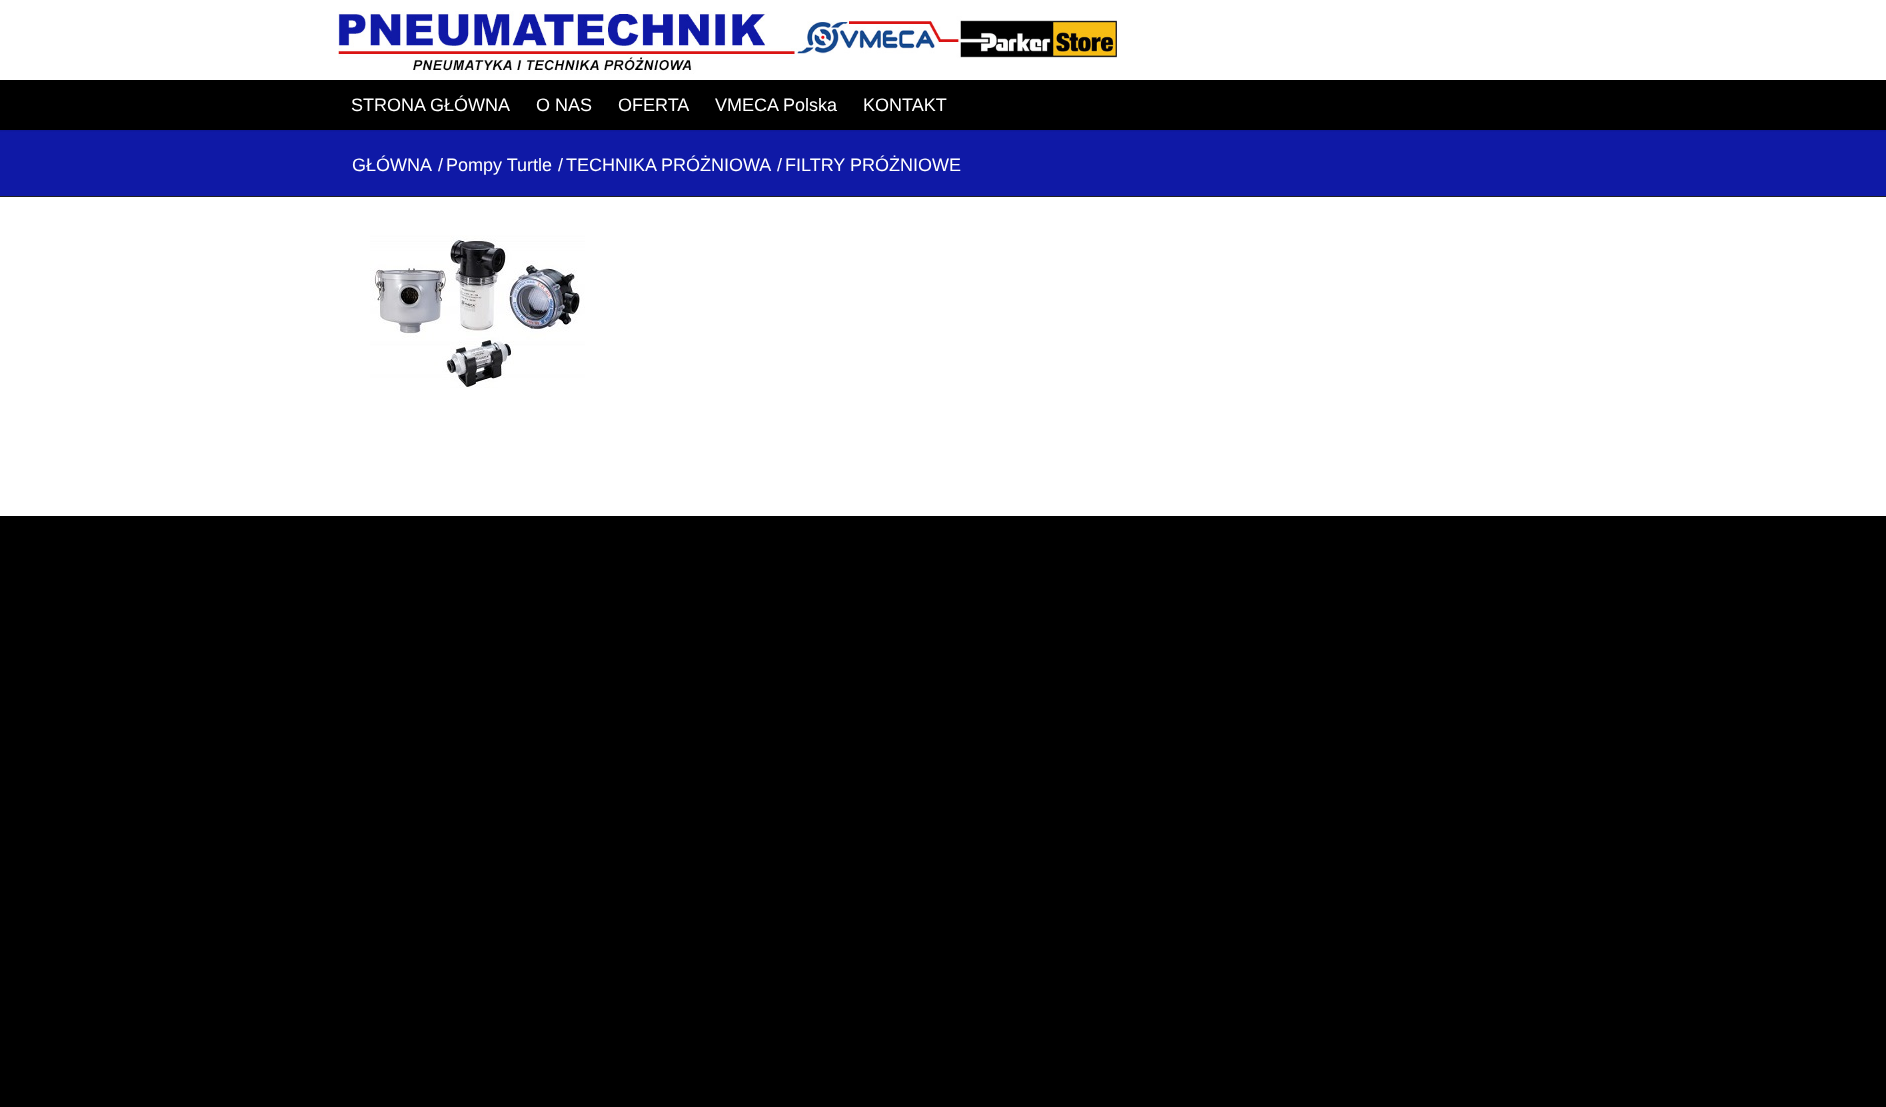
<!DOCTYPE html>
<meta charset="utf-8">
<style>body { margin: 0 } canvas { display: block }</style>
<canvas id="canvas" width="1886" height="1107"></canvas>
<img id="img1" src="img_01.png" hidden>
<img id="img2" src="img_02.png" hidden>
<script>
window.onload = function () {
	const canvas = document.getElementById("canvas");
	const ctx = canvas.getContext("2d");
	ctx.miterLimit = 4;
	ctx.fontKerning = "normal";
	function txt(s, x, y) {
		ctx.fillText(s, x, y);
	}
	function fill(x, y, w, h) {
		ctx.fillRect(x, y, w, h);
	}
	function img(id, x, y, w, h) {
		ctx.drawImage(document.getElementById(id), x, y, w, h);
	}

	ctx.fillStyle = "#000000";
	fill(0, 0, 1886, 1107);
	ctx.fillStyle = "#FFFFFF";
	fill(0, 0, 1886, 516);
	ctx.fillStyle = "#0F19A6";
	fill(0, 130, 1886, 66);
	ctx.save();
	ctx.beginPath();
	ctx.rect(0, 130, 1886, 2);
	ctx.clip();
	ctx.fillStyle = "rgba(0, 0, 0, 0.1)";
	ctx.filter = "blur(1px)";
	ctx.beginPath();
	ctx.rect(-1, -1, 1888, 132);
	ctx.fill();
	ctx.filter = "none";
	ctx.restore();
	img("img1", 338, 11, 779, 63);
	ctx.fillStyle = "#000000";
	fill(0, 80, 1886, 50);
	ctx.fillStyle = "#1F1F1F";
	fill(0, 196, 1886, 1);
	img("img2", 370, 235, 215, 153);
	ctx.font = "18px Liberation Sans";
	ctx.fillStyle = "#FFFFFF";
	txt("STRONA GŁÓWNA", 351, 111);
	txt("O NAS", 536, 111);
	txt("OFERTA", 618, 111);
	txt("VMECA Polska", 715, 111);
	txt("KONTAKT", 863, 111);
	txt("GŁÓWNA", 352, 171);
	txt("/", 438, 171);
	txt("Pompy Turtle", 446, 171);
	txt("/", 558, 171);
	txt("TECHNIKA PRÓŻNIOWA", 566, 171);
	txt("/", 777, 171);
	txt("FILTRY PRÓŻNIOWE", 785, 171);
};
</script>
